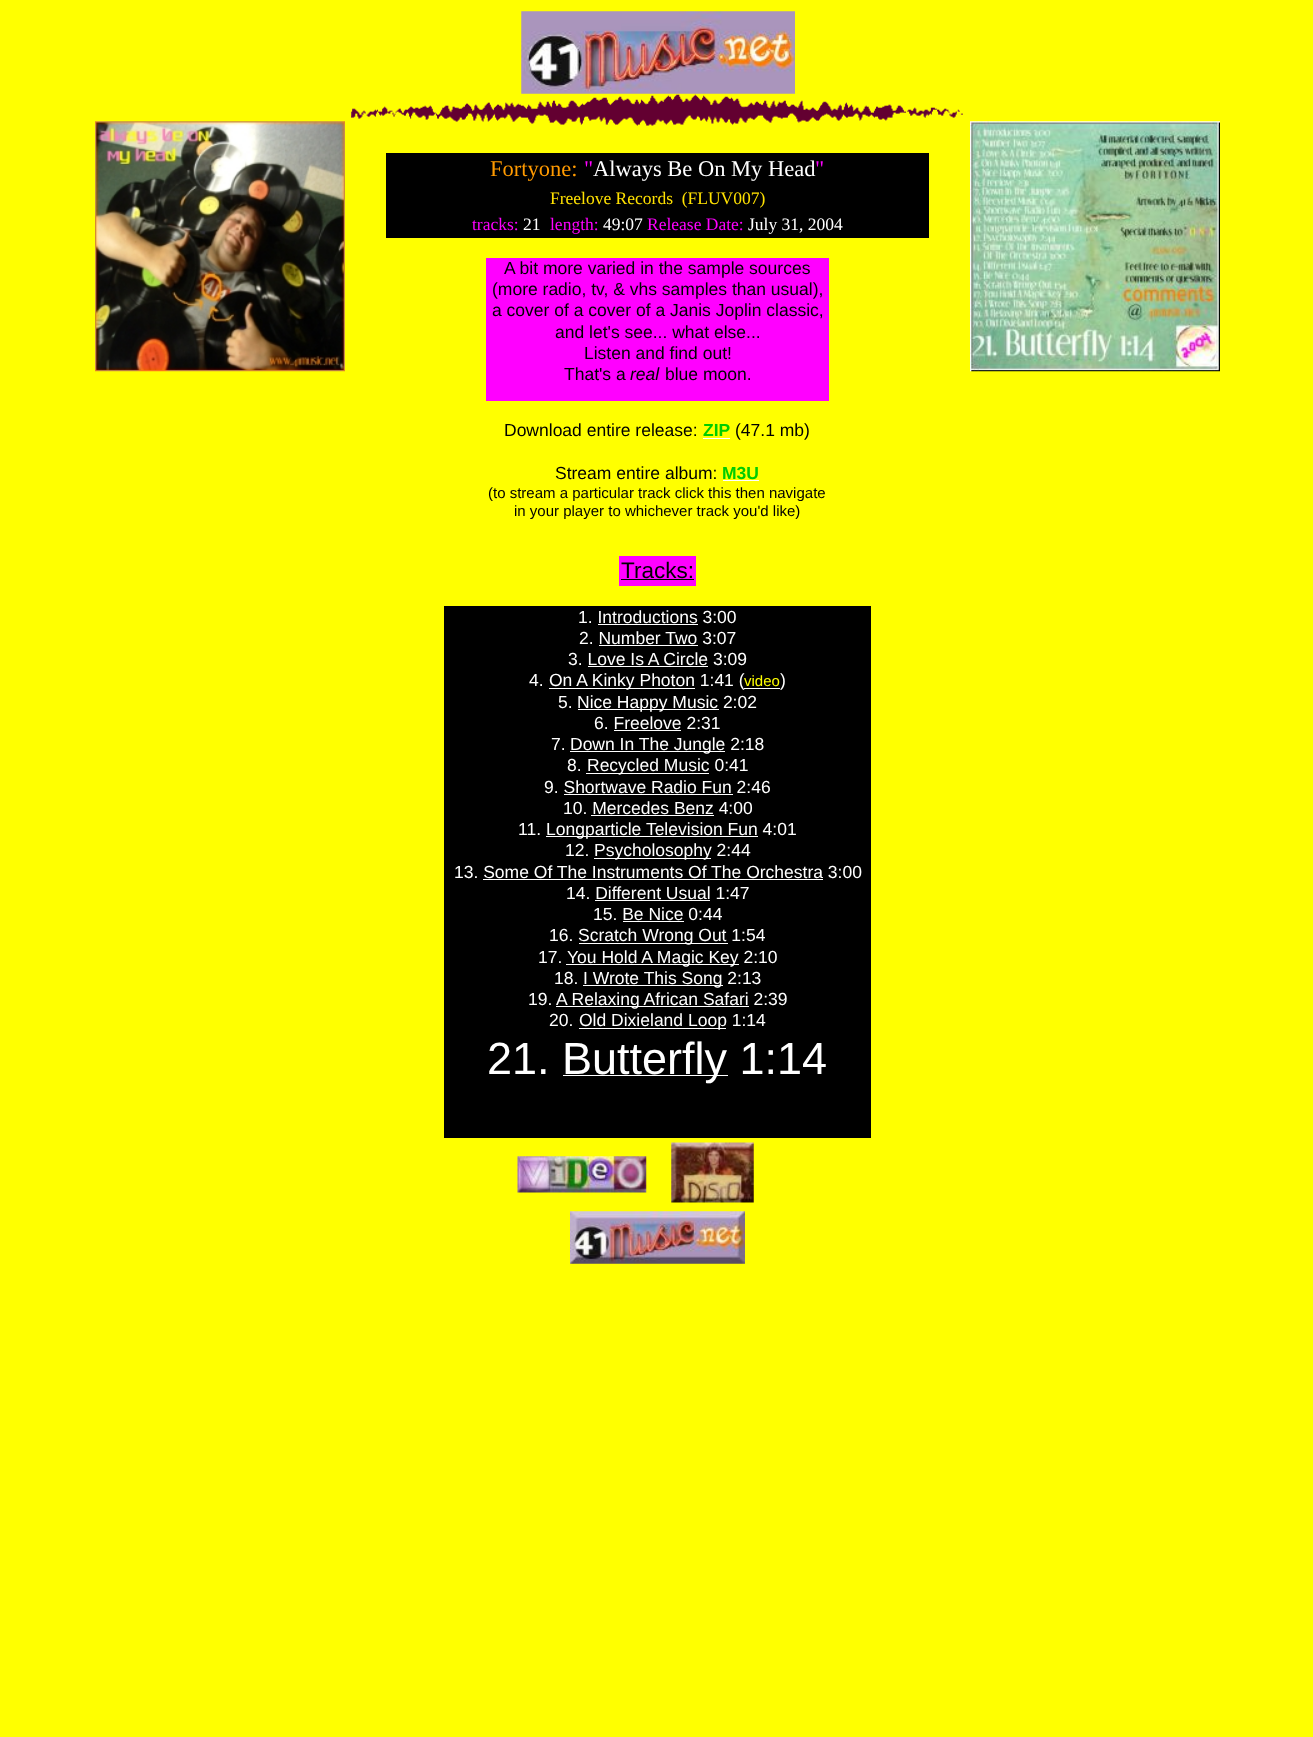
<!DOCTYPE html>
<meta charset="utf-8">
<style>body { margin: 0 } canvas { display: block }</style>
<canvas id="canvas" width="1313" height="1737"></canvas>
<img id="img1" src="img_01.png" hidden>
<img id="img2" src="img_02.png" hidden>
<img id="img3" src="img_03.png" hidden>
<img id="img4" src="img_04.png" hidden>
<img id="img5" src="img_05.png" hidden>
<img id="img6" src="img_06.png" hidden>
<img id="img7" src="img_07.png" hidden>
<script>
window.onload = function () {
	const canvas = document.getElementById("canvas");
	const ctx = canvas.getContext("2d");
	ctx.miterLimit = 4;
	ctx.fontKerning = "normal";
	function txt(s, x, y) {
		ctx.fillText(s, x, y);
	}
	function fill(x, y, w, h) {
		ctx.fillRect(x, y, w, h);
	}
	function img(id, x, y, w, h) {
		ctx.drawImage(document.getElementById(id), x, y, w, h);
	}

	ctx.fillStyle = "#FFFF00";
	fill(0, 0, 1313, 1737);
	img("img1", 521, 11, 274, 83);
	img("img2", 351, 94, 612, 32);
	img("img3", 95, 121, 250, 251);
	ctx.fillStyle = "#000000";
	fill(386, 153, 543, 85);
	img("img4", 970, 121, 250, 251);
	ctx.fillStyle = "#FF00FF";
	fill(486, 258, 343, 143);
	ctx.fillStyle = "#FFFFFF";
	fill(703, 438, 27, 1);
	fill(723, 480, 36, 1);
	ctx.fillStyle = "#FF00FF";
	fill(619, 556, 77, 30);
	ctx.fillStyle = "#000000";
	fill(621, 579, 73, 1);
	fill(444, 606, 427, 532);
	ctx.fillStyle = "#FFFFFF";
	fill(598, 624, 100, 1);
	fill(599, 645, 99, 1);
	fill(588, 666, 120, 1);
	fill(549, 688, 146, 1);
	fill(744, 688, 36, 1);
	fill(578, 709, 141, 1);
	fill(614, 730, 67, 1);
	fill(570, 751, 155, 1);
	fill(586, 773, 123, 1);
	fill(564, 794, 169, 1);
	fill(591, 815, 123, 1);
	fill(546, 836, 212, 1);
	fill(594, 858, 117, 1);
	fill(483, 879, 340, 1);
	fill(595, 900, 115, 1);
	fill(623, 921, 61, 1);
	fill(579, 943, 149, 1);
	fill(566, 964, 173, 1);
	fill(583, 985, 140, 1);
	fill(556, 1006, 193, 1);
	fill(579, 1028, 147, 1);
	fill(563, 1075, 165, 1);
	img("img5", 517, 1156, 130, 37);
	img("img6", 671, 1142, 83, 61);
	img("img7", 570, 1211, 175, 53);
	ctx.font = "22.5px Liberation Serif";
	ctx.fillStyle = "#FF9A00";
	txt("Fortyone:", 490, 176);
	ctx.fillStyle = "#FF00FF";
	txt("\"", 584, 176);
	ctx.fillStyle = "#FFFFFF";
	txt("Always Be On My Head", 593, 176);
	ctx.fillStyle = "#FF00FF";
	txt("\"", 815, 176);
	ctx.font = "17.5px Liberation Serif";
	ctx.fillStyle = "#FFE100";
	txt("Freelove Records  (FLUV007)", 550, 204);
	ctx.fillStyle = "#FF00FF";
	txt("tracks:", 472, 230);
	ctx.fillStyle = "#FFFFFF";
	txt("21", 523, 230);
	ctx.fillStyle = "#FF00FF";
	txt("length:", 550, 230);
	ctx.fillStyle = "#FFFFFF";
	txt("49:07", 603, 230);
	ctx.fillStyle = "#FF00FF";
	txt("Release Date:", 647, 230);
	ctx.fillStyle = "#FFFFFF";
	txt("July 31, 2004", 748, 230);
	ctx.font = "17.5px Liberation Sans";
	ctx.fillStyle = "#000000";
	txt("A bit more varied in the sample sources", 504, 274);
	txt("(more radio, tv, & vhs samples than usual),", 492, 295);
	txt("a cover of a cover of a Janis Joplin classic,", 492, 316);
	txt("and let's see... what else...", 555, 338);
	txt("Listen and find out!", 584, 359);
	txt("That's a", 564, 380);
	ctx.font = "italic 17.5px Liberation Sans";
	txt("real", 630, 380);
	ctx.font = "17.5px Liberation Sans";
	txt("blue moon.", 665, 380);
	txt("Download entire release:", 504, 436);
	ctx.font = "bold 17.5px Liberation Sans";
	ctx.fillStyle = "#00CD00";
	txt("ZIP", 703, 436);
	ctx.font = "17.5px Liberation Sans";
	ctx.fillStyle = "#000000";
	txt("(47.1 mb)", 735, 436);
	txt("Stream entire album:", 555, 479);
	ctx.font = "bold 17.5px Liberation Sans";
	ctx.fillStyle = "#00CD00";
	txt("M3U", 722, 479);
	ctx.font = "15px Liberation Sans";
	ctx.fillStyle = "#000000";
	txt("(to stream a particular track click this then navigate", 488, 498);
	txt("in your player to whichever track you'd like)", 514, 516);
	ctx.font = "22.5px Liberation Sans";
	txt("Tracks:", 621, 578);
	ctx.font = "17.5px Liberation Sans";
	ctx.fillStyle = "#FFFFFF";
	txt("1. Introductions 3:00", 578, 623);
	txt("2. Number Two 3:07", 579, 644);
	txt("3. Love Is A Circle 3:09", 568, 665);
	txt("4.", 529, 686);
	txt("On A Kinky Photon 1:41 (", 549, 686);
	ctx.font = "15px Liberation Sans";
	ctx.fillStyle = "#FFFF00";
	txt("video", 744, 686);
	ctx.font = "17.5px Liberation Sans";
	ctx.fillStyle = "#FFFFFF";
	txt(")", 780, 686);
	txt("5.", 558, 708);
	txt("Nice Happy Music 2:02", 577, 708);
	txt("6. Freelove 2:31", 594, 729);
	txt("7.", 551, 750);
	txt("Down In The Jungle 2:18", 570, 750);
	txt("8.", 567, 771);
	txt("Recycled Music 0:41", 587, 771);
	txt("9. Shortwave Radio Fun 2:46", 544, 793);
	txt("10. Mercedes Benz 4:00", 563, 814);
	txt("11.", 518, 835);
	txt("Longparticle Television Fun 4:01", 546, 835);
	txt("12.", 565, 856);
	txt("Psycholosophy 2:44", 594, 856);
	txt("13. Some Of The Instruments Of The Orchestra 3:00", 454, 878);
	txt("14. Different Usual 1:47", 566, 899);
	txt("15. Be Nice 0:44", 593, 920);
	txt("16.", 549, 941);
	txt("Scratch Wrong Out 1:54", 578, 941);
	txt("17.", 538, 963);
	txt("You Hold A Magic Key 2:10", 567, 963);
	txt("18.", 554, 984);
	txt("I Wrote This Song 2:13", 583, 984);
	txt("19.", 528, 1005);
	txt("A Relaxing African Safari 2:39", 556, 1005);
	txt("20.", 549, 1026);
	txt("Old Dixieland Loop 1:14", 579, 1026);
	ctx.font = "45px Liberation Sans";
	txt("21.", 487, 1074);
	txt("Butterfly 1:14", 562, 1074);
};
</script>
